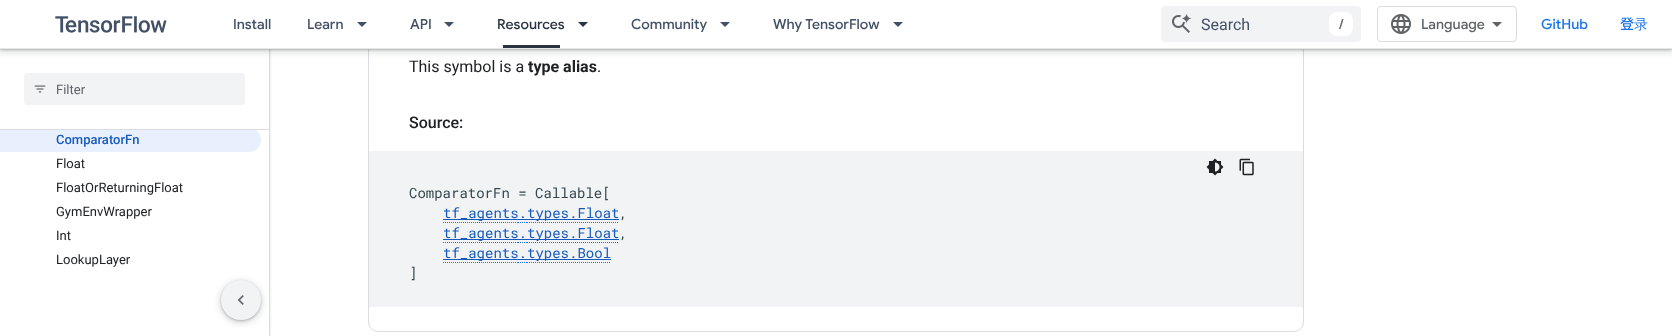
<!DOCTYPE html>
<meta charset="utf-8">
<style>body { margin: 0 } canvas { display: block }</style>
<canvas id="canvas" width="1672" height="336"></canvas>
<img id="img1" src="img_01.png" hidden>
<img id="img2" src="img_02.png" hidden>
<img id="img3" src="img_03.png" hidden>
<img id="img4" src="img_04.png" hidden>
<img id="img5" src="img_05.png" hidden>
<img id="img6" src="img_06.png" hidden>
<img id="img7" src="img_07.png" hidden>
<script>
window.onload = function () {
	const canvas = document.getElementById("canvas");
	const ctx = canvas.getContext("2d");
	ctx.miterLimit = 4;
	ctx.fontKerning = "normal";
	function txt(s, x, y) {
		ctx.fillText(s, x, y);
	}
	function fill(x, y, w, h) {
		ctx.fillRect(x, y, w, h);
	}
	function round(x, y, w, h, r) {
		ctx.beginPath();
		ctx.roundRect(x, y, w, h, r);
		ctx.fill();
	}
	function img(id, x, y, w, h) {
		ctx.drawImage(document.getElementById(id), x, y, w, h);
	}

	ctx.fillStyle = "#FFFFFF";
	fill(0, 0, 1672, 336);
	ctx.save();
	ctx.beginPath();
	ctx.rect(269, 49, 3, 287);
	ctx.clip();
	ctx.fillStyle = "rgba(60, 64, 67, 0.15)";
	ctx.filter = "blur(1.5px)";
	ctx.beginPath();
	ctx.rect(-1, 0, 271, 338);
	ctx.fill();
	ctx.filter = "none";
	ctx.restore();
	ctx.save();
	ctx.beginPath();
	ctx.rect(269, 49, 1, 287);
	ctx.clip();
	ctx.fillStyle = "rgba(60, 64, 67, 0.3)";
	ctx.filter = "blur(1px)";
	ctx.beginPath();
	ctx.rect(0, 1, 269, 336);
	ctx.fill();
	ctx.filter = "none";
	ctx.restore();
	ctx.beginPath();
	ctx.roundRect(368.5, -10.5, 935, 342, 9.5);
	ctx.strokeStyle = "#DADCE0";
	ctx.stroke();
	ctx.fillStyle = "rgba(60, 64, 67, 0.15)";
	ctx.filter = "blur(3px)";
	ctx.beginPath();
	ctx.rect(-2, -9, 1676, 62);
	ctx.fill();
	ctx.filter = "none";
	ctx.fillStyle = "rgba(60, 64, 67, 0.3)";
	ctx.filter = "blur(1px)";
	ctx.beginPath();
	ctx.rect(0, -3, 1672, 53);
	ctx.fill();
	ctx.filter = "none";
	ctx.fillStyle = "#FFFFFF";
	fill(0, 0, 1672, 48);
	ctx.fillStyle = "#E6E6E6";
	fill(0, 48, 1672, 1);
	img("img1", 55, 16, 112, 17);
	ctx.fillStyle = "#425066";
	ctx.beginPath();
	ctx.moveTo(357, 22);
	ctx.lineTo(367, 22);
	ctx.lineTo(362, 27);
	ctx.closePath();
	ctx.fill();
	ctx.beginPath();
	ctx.moveTo(444, 22);
	ctx.lineTo(454, 22);
	ctx.lineTo(449, 27);
	ctx.closePath();
	ctx.fill();
	ctx.fillStyle = "#293241";
	fill(503, 45, 57, 3);
	ctx.beginPath();
	ctx.moveTo(578, 22);
	ctx.lineTo(588, 22);
	ctx.lineTo(583, 27);
	ctx.closePath();
	ctx.fill();
	ctx.fillStyle = "#425066";
	ctx.beginPath();
	ctx.moveTo(720, 22);
	ctx.lineTo(730, 22);
	ctx.lineTo(725, 27);
	ctx.closePath();
	ctx.fill();
	ctx.beginPath();
	ctx.moveTo(893, 22);
	ctx.lineTo(903, 22);
	ctx.lineTo(898, 27);
	ctx.closePath();
	ctx.fill();
	ctx.fillStyle = "#F1F3F4";
	round(1161, 6, 200, 36, 4);
	img("img2", 1172, 13, 20, 20);
	ctx.fillStyle = "#FFFFFF";
	round(1329, 12, 24, 24, 8);
	ctx.beginPath();
	ctx.roundRect(1377.5, 6.5, 139, 35, 3.5);
	ctx.stroke();
	img("img3", 1391, 14, 20, 20);
	ctx.fillStyle = "#5F6368";
	ctx.beginPath();
	ctx.moveTo(1497, 27);
	ctx.lineTo(1492, 22);
	ctx.lineTo(1502, 22);
	ctx.closePath();
	ctx.fill();
	ctx.fillStyle = "#E8F0FE";
	ctx.beginPath();
	ctx.roundRect(0, 128, 261, 24, [0, 12, 12, 0]);
	ctx.fill();
	ctx.fillStyle = "#FFFFFF";
	fill(0, 128, 254, 1);
	ctx.fillStyle = "#DADCE0";
	fill(0, 129, 269, 1);
	ctx.fillStyle = "#F1F3F4";
	round(24, 73, 221, 32, 4);
	img("img4", 34, 85, 12, 8);
	fill(369, 151, 934, 156);
	img("img5", 1206, 158, 18, 18);
	img("img6", 1239, 158, 15, 18);
	ctx.beginPath();
	ctx.moveTo(443, 222.5);
	ctx.lineTo(518, 222.5);
	ctx.strokeStyle = "#1A73E8";
	ctx.setLineDash([1, 1]);
	ctx.stroke();
	ctx.beginPath();
	ctx.moveTo(518, 222.5);
	ctx.lineTo(527, 222.5);
	ctx.moveTo(527, 222.5);
	ctx.lineTo(569, 222.5);
	ctx.moveTo(569, 222.5);
	ctx.lineTo(577, 222.5);
	ctx.stroke();
	ctx.beginPath();
	ctx.moveTo(577, 222.5);
	ctx.lineTo(619, 222.5);
	ctx.stroke();
	ctx.fillStyle = "#185ABC";
	fill(443, 219, 176, 1);
	ctx.beginPath();
	ctx.moveTo(443, 242.5);
	ctx.lineTo(518, 242.5);
	ctx.stroke();
	ctx.beginPath();
	ctx.moveTo(518, 242.5);
	ctx.lineTo(527, 242.5);
	ctx.moveTo(527, 242.5);
	ctx.lineTo(569, 242.5);
	ctx.moveTo(569, 242.5);
	ctx.lineTo(577, 242.5);
	ctx.stroke();
	ctx.beginPath();
	ctx.moveTo(577, 242.5);
	ctx.lineTo(619, 242.5);
	ctx.stroke();
	fill(443, 239, 176, 1);
	ctx.beginPath();
	ctx.moveTo(443, 262.5);
	ctx.lineTo(518, 262.5);
	ctx.stroke();
	ctx.beginPath();
	ctx.moveTo(518, 262.5);
	ctx.lineTo(527, 262.5);
	ctx.moveTo(527, 262.5);
	ctx.lineTo(569, 262.5);
	ctx.moveTo(569, 262.5);
	ctx.lineTo(577, 262.5);
	ctx.stroke();
	ctx.beginPath();
	ctx.moveTo(577, 262.5);
	ctx.lineTo(611, 262.5);
	ctx.stroke();
	fill(443, 259, 168, 1);
	ctx.fillStyle = "rgba(60, 64, 67, 0.15)";
	ctx.filter = "blur(3px)";
	ctx.beginPath();
	ctx.roundRect(219, 280, 44, 44, 22);
	ctx.fill();
	ctx.filter = "none";
	ctx.fillStyle = "rgba(60, 64, 67, 0.3)";
	ctx.filter = "blur(1px)";
	ctx.beginPath();
	ctx.roundRect(221, 281, 40, 40, 20);
	ctx.fill();
	ctx.filter = "none";
	ctx.fillStyle = "#F1F3F4";
	ctx.beginPath();
	ctx.arc(241, 300, 20, 0, Math.PI * 2);
	ctx.fill();
	img("img7", 237, 295, 7, 10);
	ctx.font = "500 14px Google Sans";
	ctx.fillStyle = "#425066";
	txt("Install", 233, 29);
	txt("Learn", 307, 29);
	txt("API", 410, 29);
	ctx.fillStyle = "#293241";
	txt("Resources", 497, 29);
	ctx.fillStyle = "#425066";
	txt("Community", 631, 29);
	txt("Why TensorFlow", 773, 29);
	ctx.font = "16px Roboto";
	txt("Search", 1201, 30);
	ctx.font = "500 14px Google Sans";
	ctx.fillStyle = "#5F6368";
	txt("/", 1339, 29);
	txt("Language", 1421, 29);
	ctx.fillStyle = "#1A73E8";
	txt("GitHub", 1541, 29);
	ctx.font = "500 14px Noto Sans JP";
	txt("登", 1620, 29);
	ctx.font = "500 14px WenQuanYi Zen Hei";
	txt("录", 1634, 29);
	ctx.font = "13px Roboto";
	ctx.fillStyle = "#5F6368";
	txt("Filter", 56, 94);
	ctx.font = "500 13px Roboto";
	ctx.fillStyle = "#185ABC";
	txt("ComparatorFn", 56, 144);
	ctx.font = "13px Roboto";
	ctx.fillStyle = "#202124";
	txt("Float", 56, 168);
	txt("FloatOrReturningFloat", 56, 192);
	txt("GymEnvWrapper", 56, 216);
	txt("Int", 56, 240);
	txt("LookupLayer", 56, 264);
	ctx.font = "16px Roboto";
	txt("This symbol is a", 409, 72);
	ctx.font = "bold 16px Roboto";
	txt("type alias", 528, 72);
	ctx.font = "16px Roboto";
	txt(".", 597, 72);
	ctx.font = "500 16px Roboto";
	txt("Source:", 409, 128);
	ctx.font = "14px Roboto Mono";
	ctx.fillStyle = "#37474F";
	txt("ComparatorFn = Callable[", 409, 198);
	ctx.fillStyle = "#185ABC";
	txt("tf_agents.types.Float", 443, 218);
	ctx.fillStyle = "#37474F";
	txt(",", 619, 218);
	ctx.fillStyle = "#185ABC";
	txt("tf_agents.types.Float", 443, 238);
	ctx.fillStyle = "#37474F";
	txt(",", 619, 238);
	ctx.fillStyle = "#185ABC";
	txt("tf_agents.types.Bool", 443, 258);
	ctx.fillStyle = "#37474F";
	txt("]", 409, 278);
};
</script>
